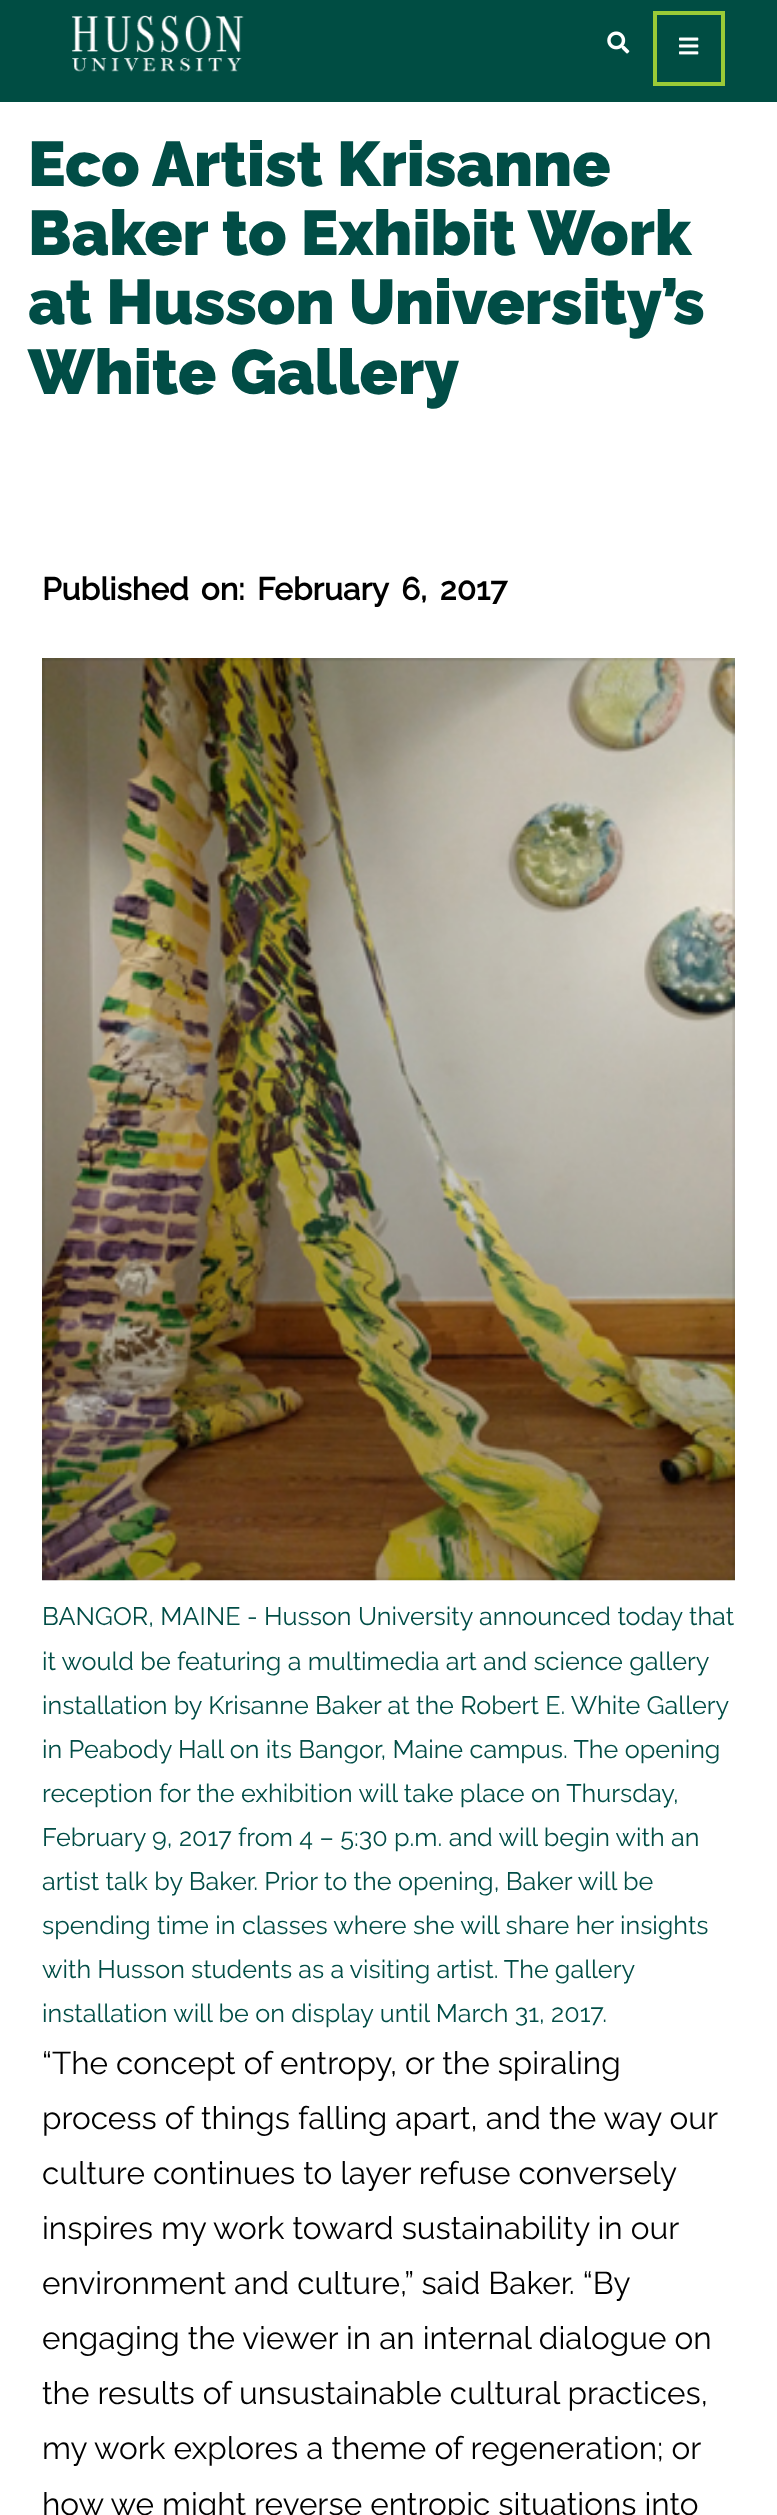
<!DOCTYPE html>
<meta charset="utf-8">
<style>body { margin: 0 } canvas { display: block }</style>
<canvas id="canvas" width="777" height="2515"></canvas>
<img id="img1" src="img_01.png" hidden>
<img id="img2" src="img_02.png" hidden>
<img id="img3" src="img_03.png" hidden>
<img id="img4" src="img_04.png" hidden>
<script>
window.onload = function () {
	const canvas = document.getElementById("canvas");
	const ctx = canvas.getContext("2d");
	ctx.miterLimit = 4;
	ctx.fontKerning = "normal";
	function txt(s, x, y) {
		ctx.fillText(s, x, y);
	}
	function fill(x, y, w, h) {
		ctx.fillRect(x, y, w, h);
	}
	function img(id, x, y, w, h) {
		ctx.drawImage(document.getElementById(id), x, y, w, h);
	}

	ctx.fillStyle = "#FFFFFF";
	fill(0, 0, 777, 2515);
	ctx.fillStyle = "#004D43";
	fill(0, 0, 777, 102);
	img("img1", 71, 15, 173, 57);
	img("img2", 607, 31, 23, 23);
	ctx.strokeStyle = "#9ACA37";
	ctx.lineWidth = 4;
	ctx.strokeRect(655, 13, 68, 71);
	img("img3", 679, 37, 20, 18);
	img("img4", 42, 658, 693, 923);
	ctx.font = "900 63px Raleway";
	ctx.fillStyle = "#014D46";
	txt("Eco Artist Krisanne", 28, 186);
	txt("Baker to Exhibit Work", 28, 255);
	txt("at Husson University’s", 28, 324);
	txt("White Gallery", 28, 394);
	ctx.wordSpacing = "4px";
	ctx.font = "bold 31.5px Raleway";
	ctx.fillStyle = "#000000";
	txt("Published on:", 42, 600);
	ctx.wordSpacing = "5px";
	txt("February 6, 2017", 257, 600);
	ctx.wordSpacing = "0px";
	ctx.font = "25.2px Raleway";
	ctx.fillStyle = "#014D46";
	txt("BANGOR, MAINE - Husson University announced today that", 42, 1625);
	ctx.wordSpacing = "-0.1px";
	txt("it would be featuring a multimedia art and science gallery", 42, 1670);
	txt("installation by Krisanne Baker at the Robert E. White Gallery", 42, 1714);
	ctx.wordSpacing = "0px";
	txt("in Peabody Hall on its Bangor, Maine campus. The opening", 42, 1758);
	txt("reception for the exhibition will take place on Thursday,", 42, 1802);
	txt("February 9, 2017 from 4 – 5:30 p.m. and will begin with an", 42, 1846);
	txt("artist talk by Baker. Prior to the opening, Baker will be", 42, 1890);
	txt("spending time in classes where she will share her insights", 42, 1934);
	ctx.wordSpacing = "-0.25px";
	txt("with Husson students as a visiting artist. The gallery", 42, 1978);
	ctx.wordSpacing = "0px";
	txt("installation will be on display until March 31, 2017.", 42, 2022);
	ctx.font = "31.5px Raleway";
	ctx.fillStyle = "#000000";
	txt("“The concept of entropy, or the spiraling", 42, 2074);
	txt("process of things falling apart, and the way our", 42, 2129);
	txt("culture continues to layer refuse conversely", 42, 2184);
	txt("inspires my work toward sustainability in our", 42, 2239);
	txt("environment and culture,” said Baker. “By", 42, 2294);
	txt("engaging the viewer in an internal dialogue on", 42, 2349);
	txt("the results of unsustainable cultural practices,", 42, 2404);
	txt("my work explores a theme of regeneration; or", 42, 2459);
	txt("how we might reverse entropic situations into", 42, 2515);
};
</script>
